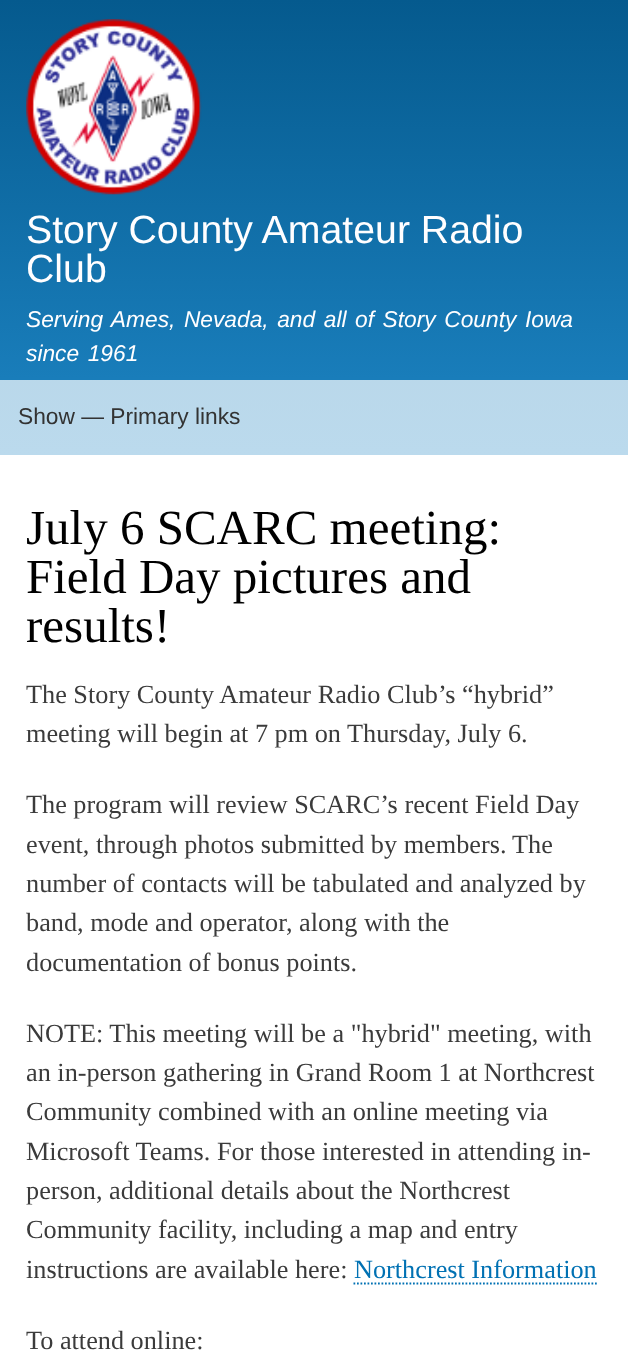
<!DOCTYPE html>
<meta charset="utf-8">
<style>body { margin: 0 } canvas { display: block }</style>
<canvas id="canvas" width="628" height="1358"></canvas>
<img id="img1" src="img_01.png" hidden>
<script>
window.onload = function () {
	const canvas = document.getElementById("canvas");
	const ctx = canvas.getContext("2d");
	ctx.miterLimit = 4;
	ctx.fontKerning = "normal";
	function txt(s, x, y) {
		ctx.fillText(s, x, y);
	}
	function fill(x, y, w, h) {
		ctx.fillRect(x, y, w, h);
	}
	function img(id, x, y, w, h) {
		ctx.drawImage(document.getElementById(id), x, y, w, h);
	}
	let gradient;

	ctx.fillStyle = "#FFFFFF";
	fill(0, 0, 628, 1358);
	gradient = ctx.createLinearGradient(314, 0, 314, 455);
	gradient.addColorStop(0, "#055A8E");
	gradient.addColorStop(1, "#1D84C3");
	ctx.fillStyle = gradient;
	fill(0, 0, 628, 380);
	gradient = ctx.createLinearGradient(314, 0, 314, 455);
	gradient.addColorStop(0, "#B4CEDD");
	gradient.addColorStop(1, "#BBDAED");
	ctx.fillStyle = gradient;
	fill(0, 380, 628, 75);
	img("img1", 26, 19, 176, 176);
	ctx.beginPath();
	ctx.moveTo(353.5, 1283.5);
	ctx.lineTo(597, 1283.5);
	ctx.strokeStyle = "#0071B3";
	ctx.lineWidth = 1.8;
	ctx.setLineDash([1.75, 1.75]);
	ctx.stroke();
	ctx.font = "39.25px Liberation Sans";
	ctx.fillStyle = "#FFFEFF";
	txt("Story County Amateur Radio", 26, 243);
	txt("Club", 26, 282);
	ctx.wordSpacing = "2.25px";
	ctx.font = "italic 22.75px Liberation Sans";
	txt("Serving Ames, Nevada, and all of Story County Iowa", 26, 327);
	txt("since 1961", 26, 361);
	ctx.wordSpacing = "0px";
	ctx.font = "22.75px Liberation Sans";
	ctx.fillStyle = "#333333";
	txt("Show — Primary links", 18, 424);
	ctx.font = "49px Liberation Serif";
	ctx.fillStyle = "#000000";
	txt("July 6 SCARC meeting:", 26, 544);
	txt("Field Day pictures and", 26, 593);
	txt("results!", 26, 642);
	ctx.font = "26.25px Liberation Serif";
	ctx.fillStyle = "#3B3B3B";
	txt("The Story County Amateur Radio Club’s “hybrid”", 26, 703);
	txt("meeting will begin at 7 pm on Thursday, July 6.", 26, 742);
	txt("The program will review SCARC’s recent Field Day", 26, 813);
	txt("event, through photos submitted by members.", 26, 853);
	txt("The", 512, 853);
	txt("number of contacts will be tabulated and analyzed by", 26, 892);
	txt("band, mode and operator, along with the", 26, 931);
	txt("documentation of bonus points.", 26, 971);
	txt("NOTE: This meeting will be a \"hybrid\" meeting, with", 26, 1042);
	txt("an in-person gathering in Grand Room 1 at Northcrest", 26, 1081);
	txt("Community combined with an online meeting via", 26, 1120);
	txt("Microsoft Teams. For those interested in attending in-", 26, 1160);
	txt("person, additional details about the Northcrest", 26, 1199);
	txt("Community facility, including a map and entry", 26, 1238);
	txt("instructions are available here:", 26, 1278);
	ctx.fillStyle = "#0071B3";
	txt("Northcrest Information", 354, 1278);
	ctx.fillStyle = "#3B3B3B";
	txt("To attend online:", 26, 1349);
};
</script>
